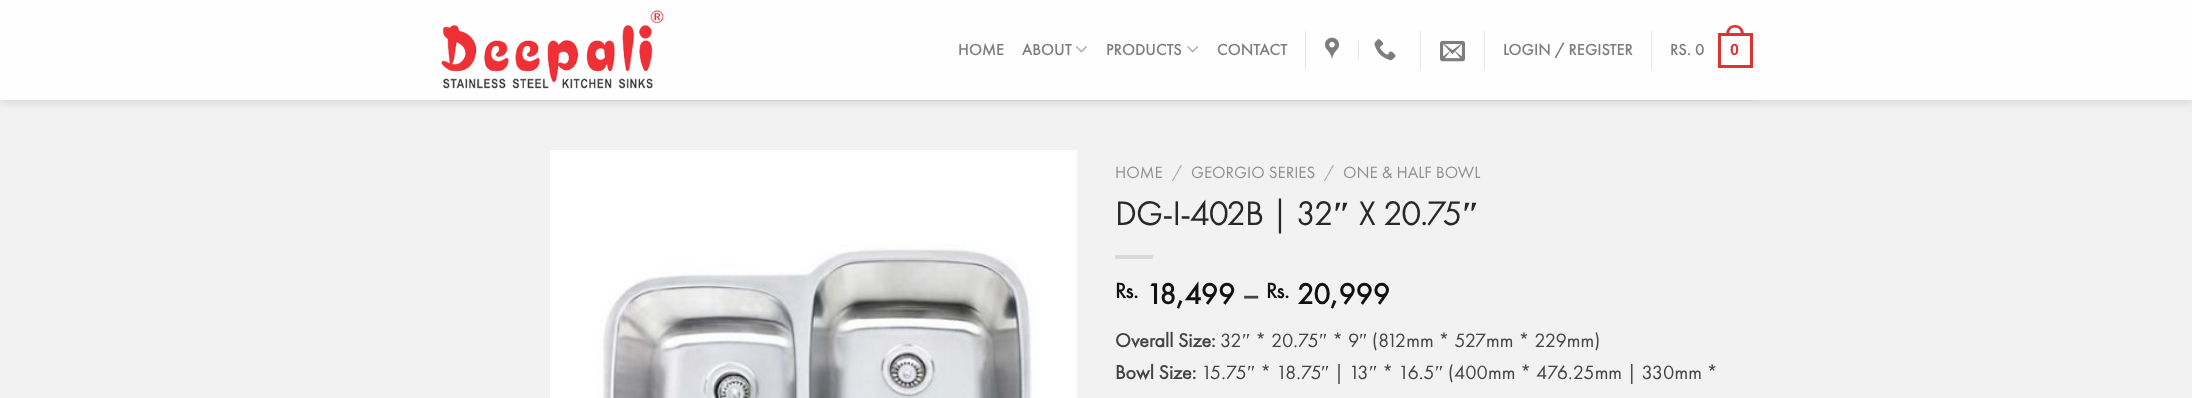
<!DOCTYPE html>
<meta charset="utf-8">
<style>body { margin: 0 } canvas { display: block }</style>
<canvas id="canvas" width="2192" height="398"></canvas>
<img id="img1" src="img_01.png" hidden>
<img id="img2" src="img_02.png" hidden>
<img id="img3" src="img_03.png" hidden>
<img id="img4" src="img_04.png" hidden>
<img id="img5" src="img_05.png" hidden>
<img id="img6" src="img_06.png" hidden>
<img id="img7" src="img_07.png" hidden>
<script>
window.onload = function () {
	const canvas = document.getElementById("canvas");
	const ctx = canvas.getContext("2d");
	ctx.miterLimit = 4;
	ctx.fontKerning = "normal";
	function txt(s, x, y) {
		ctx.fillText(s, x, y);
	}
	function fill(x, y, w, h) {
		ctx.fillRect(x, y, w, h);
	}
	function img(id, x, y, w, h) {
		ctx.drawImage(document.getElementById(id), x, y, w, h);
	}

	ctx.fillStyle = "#F2F2F2";
	fill(0, 0, 2192, 398);
	ctx.fillStyle = "rgba(0, 0, 0, 0.15)";
	ctx.filter = "blur(6px)";
	ctx.beginPath();
	ctx.rect(1, 1, 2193, 100);
	ctx.fill();
	ctx.filter = "none";
	ctx.fillStyle = "#FEFEFE";
	fill(0, 0, 2192, 100);
	img("img1", 441, 10, 223, 79);
	img("img2", 1076, 46, 11, 7);
	img("img3", 1187, 46, 12, 7);
	ctx.fillStyle = "#E5E5E5";
	fill(1305, 31, 1, 38);
	img("img4", 1325, 37, 15, 23);
	fill(1358, 41, 1, 19);
	img("img5", 1374, 39, 22, 22);
	fill(1420, 31, 1, 38);
	img("img6", 1440, 40, 25, 22);
	fill(1484, 31, 1, 38);
	fill(1651, 31, 1, 38);
	ctx.strokeStyle = "#DD3333";
	ctx.lineWidth = 3;
	ctx.strokeRect(1719.5, 34.5, 32, 32);
	ctx.fillStyle = "#DD3333";
	ctx.beginPath();
	ctx.moveTo(1735, 25);
	ctx.bezierCurveTo(1741, 25, 1744, 29.5, 1744, 35);
	ctx.lineTo(1726, 35);
	ctx.bezierCurveTo(1726, 29.5, 1729, 25, 1735, 25);
	ctx.closePath();
	ctx.moveTo(1735, 27.5);
	ctx.bezierCurveTo(1739.5, 27.5, 1741, 31, 1741, 35);
	ctx.lineTo(1729, 35);
	ctx.bezierCurveTo(1729, 31, 1730.5, 27.5, 1735, 27.5);
	ctx.closePath();
	ctx.fill("evenodd");
	ctx.fillStyle = "#CFCFCF";
	fill(440, 100, 1313, 1);
	img("img7", 550, 150, 527, 248);
	ctx.fillStyle = "#DADADA";
	fill(1115, 255, 38, 4);
	ctx.letterSpacing = "0.3px";
	ctx.font = "bold 16px 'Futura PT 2'";
	ctx.fillStyle = "#7D7D7D";
	txt("HOME", 958, 55);
	txt("ABOUT", 1022, 55);
	txt("PRODUCTS", 1106, 55);
	txt("CONTACT", 1217, 55);
	txt("LOGIN / REGISTER", 1503, 55);
	txt("RS. 0", 1670, 55);
	ctx.font = "bold 16px Liberation Sans";
	ctx.fillStyle = "#DD3333";
	txt("0", 1730, 55);
	ctx.letterSpacing = "0px";
	ctx.font = "17px Futura PT";
	ctx.fillStyle = "#909090";
	txt("HOME", 1115, 178);
	ctx.fillStyle = "#A9A9A9";
	txt("/", 1172, 178);
	ctx.fillStyle = "#909090";
	txt("GEORGIO SERIES", 1191, 178);
	ctx.fillStyle = "#A9A9A9";
	txt("/", 1324, 178);
	ctx.fillStyle = "#909090";
	txt("ONE & HALF BOWL", 1343, 178);
	ctx.font = "bold 34px Futura PT";
	ctx.fillStyle = "#2A2727";
	txt("DG-I-402B | 32", 1115, 225);
	ctx.font = "bold 34px Liberation Serif";
	txt("″", 1332, 225);
	ctx.font = "bold 34px Futura PT";
	txt("X 20.75", 1359, 225);
	ctx.font = "bold 34px Liberation Serif";
	txt("″", 1461, 225);
	ctx.font = "bold 22px 'Futura PT 2'";
	ctx.fillStyle = "#111111";
	txt("Rs.", 1115, 298);
	ctx.font = "bold 30px 'Futura PT 2'";
	txt("18,499", 1146, 304);
	ctx.fillStyle = "#454444";
	txt("–", 1242, 304);
	ctx.font = "bold 22px 'Futura PT 2'";
	ctx.fillStyle = "#111111";
	txt("Rs.", 1266, 298);
	ctx.font = "bold 30px 'Futura PT 2'";
	txt("20,999", 1297, 304);
	ctx.font = "bold 20px 'Futura PT 2'";
	ctx.fillStyle = "#454444";
	txt("Overall Size:", 1115, 347);
	ctx.font = "20px Futura PT";
	txt("32", 1220, 347);
	ctx.font = "20px Liberation Serif";
	txt("″", 1242, 347);
	ctx.font = "20px Futura PT";
	txt("* 20.75", 1255, 347);
	ctx.font = "20px Liberation Serif";
	txt("″", 1319, 347);
	ctx.font = "20px Futura PT";
	txt("* 9", 1332, 347);
	ctx.font = "20px Liberation Serif";
	txt("″", 1359, 347);
	ctx.font = "20px Futura PT";
	txt("(812mm * 527mm * 229mm)", 1372, 347);
	ctx.font = "bold 20px 'Futura PT 2'";
	txt("Bowl Size:", 1115, 379);
	ctx.font = "20px Futura PT";
	txt("15.75", 1201, 379);
	ctx.font = "20px Liberation Serif";
	txt("″", 1247, 379);
	ctx.font = "20px Futura PT";
	txt("* 18.75", 1260, 379);
	ctx.font = "20px Liberation Serif";
	txt("″", 1321, 379);
	ctx.font = "20px Futura PT";
	txt("| 13", 1334, 379);
	ctx.font = "20px Liberation Serif";
	txt("″", 1369, 379);
	ctx.font = "20px Futura PT";
	txt("* 16.5", 1382, 379);
	ctx.font = "20px Liberation Serif";
	txt("″", 1435, 379);
	ctx.font = "20px Futura PT";
	txt("(400mm * 476.25mm | 330mm *", 1448, 379);
};
</script>
